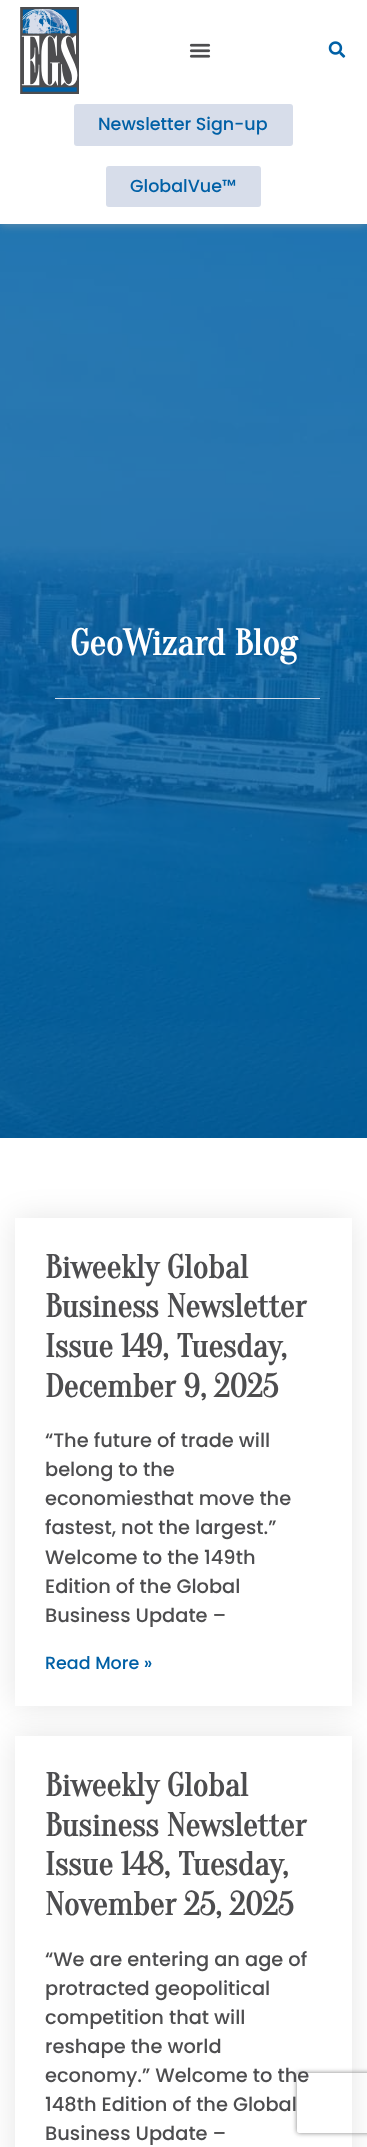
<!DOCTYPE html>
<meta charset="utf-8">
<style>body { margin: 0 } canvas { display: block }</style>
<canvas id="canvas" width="367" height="2147"></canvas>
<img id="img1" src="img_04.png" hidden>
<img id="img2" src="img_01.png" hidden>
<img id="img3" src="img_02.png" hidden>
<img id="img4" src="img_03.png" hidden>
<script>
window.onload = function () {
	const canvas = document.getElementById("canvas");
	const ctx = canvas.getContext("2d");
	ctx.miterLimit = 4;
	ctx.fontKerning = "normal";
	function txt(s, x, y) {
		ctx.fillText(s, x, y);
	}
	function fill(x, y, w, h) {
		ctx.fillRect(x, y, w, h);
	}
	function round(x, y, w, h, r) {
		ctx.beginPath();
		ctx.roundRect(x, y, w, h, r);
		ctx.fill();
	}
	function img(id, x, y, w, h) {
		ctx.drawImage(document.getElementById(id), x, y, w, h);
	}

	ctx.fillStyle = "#FFFFFF";
	fill(0, 0, 367, 2147);
	img("img1", 0, 224, 367, 914);
	ctx.save();
	ctx.beginPath();
	ctx.rect(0, 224, 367, 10);
	ctx.clip();
	ctx.fillStyle = "rgba(168, 168, 168, 0.5)";
	ctx.filter = "blur(5px)";
	ctx.beginPath();
	ctx.rect(0, 1, 367, 224);
	ctx.fill();
	ctx.filter = "none";
	ctx.restore();
	img("img2", 20, 7, 59, 87);
	img("img3", 189, 43, 22, 15);
	img("img4", 328, 41, 18, 17);
	ctx.fillStyle = "#D7DDEA";
	round(74, 104, 219, 42, 3);
	round(106, 166, 155, 41, 3);
	fill(55, 698, 265, 1);
	ctx.save();
	ctx.beginPath();
	ctx.moveTo(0, 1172);
	ctx.lineTo(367, 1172);
	ctx.lineTo(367, 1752);
	ctx.lineTo(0, 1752);
	ctx.closePath();
	ctx.moveTo(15, 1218);
	ctx.lineTo(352, 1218);
	ctx.lineTo(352, 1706);
	ctx.lineTo(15, 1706);
	ctx.closePath();
	ctx.clip("evenodd");
	ctx.fillStyle = "rgba(0, 0, 0, 0.1)";
	ctx.filter = "blur(15px)";
	ctx.beginPath();
	ctx.rect(15, 1218, 337, 488);
	ctx.fill();
	ctx.filter = "none";
	ctx.restore();
	ctx.save();
	ctx.beginPath();
	ctx.moveTo(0, 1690);
	ctx.lineTo(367, 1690);
	ctx.lineTo(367, 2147);
	ctx.lineTo(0, 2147);
	ctx.closePath();
	ctx.moveTo(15, 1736);
	ctx.lineTo(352, 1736);
	ctx.lineTo(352, 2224);
	ctx.lineTo(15, 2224);
	ctx.closePath();
	ctx.clip("evenodd");
	ctx.fillStyle = "rgba(0, 0, 0, 0.1)";
	ctx.filter = "blur(15px)";
	ctx.beginPath();
	ctx.rect(15, 1736, 337, 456);
	ctx.fill();
	ctx.filter = "none";
	ctx.restore();
	ctx.save();
	ctx.beginPath();
	ctx.moveTo(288, 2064);
	ctx.lineTo(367, 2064);
	ctx.lineTo(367, 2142);
	ctx.lineTo(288, 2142);
	ctx.closePath();
	ctx.moveTo(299, 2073);
	ctx.lineTo(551, 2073);
	ctx.bezierCurveTo(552, 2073, 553, 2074, 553, 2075);
	ctx.lineTo(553, 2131);
	ctx.bezierCurveTo(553, 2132, 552, 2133, 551, 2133);
	ctx.lineTo(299, 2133);
	ctx.bezierCurveTo(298, 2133, 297, 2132, 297, 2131);
	ctx.lineTo(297, 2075);
	ctx.bezierCurveTo(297, 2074, 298, 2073, 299, 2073);
	ctx.closePath();
	ctx.clip("evenodd");
	ctx.fillStyle = "#808080";
	ctx.filter = "blur(2.5px)";
	ctx.beginPath();
	ctx.roundRect(297, 2073, 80, 60, 2);
	ctx.fill();
	ctx.filter = "none";
	ctx.restore();
	ctx.font = "500 17.5px Poppins";
	ctx.fillStyle = "#0060A6";
	txt("Newsletter Sign-up", 98, 130);
	txt("GlobalVue™", 130, 192);
	ctx.font = "bold 36.75px Oranienbaum";
	ctx.fillStyle = "#FFFFFF";
	txt("GeoWizard Blog", 70, 655);
	ctx.font = "bold 33px Oranienbaum";
	ctx.fillStyle = "#4D4D4F";
	txt("Biweekly Global", 45, 1278);
	txt("Business Newsletter", 45, 1317);
	txt("Issue 149, Tuesday,", 45, 1357);
	txt("December 9, 2025", 45, 1397);
	ctx.font = "500 19.4px Poppins";
	txt("“The future of trade will", 45, 1447);
	txt("belong to the", 45, 1476);
	txt("economiesthat move the", 45, 1505);
	txt("fastest, not the largest.”", 45, 1534);
	txt("Welcome to the 149th", 45, 1564);
	txt("Edition of the Global", 45, 1593);
	txt("Business Update –", 45, 1622);
	ctx.font = "500 17.5px Poppins";
	ctx.fillStyle = "#0060A6";
	txt("Read More »", 45, 1669);
	ctx.font = "bold 33px Oranienbaum";
	ctx.fillStyle = "#4D4D4F";
	txt("Biweekly Global", 45, 1796);
	txt("Business Newsletter", 45, 1836);
	txt("Issue 148, Tuesday,", 45, 1875);
	txt("November 25, 2025", 45, 1915);
	ctx.font = "500 19.4px Poppins";
	txt("“We are entering an age of", 45, 1966);
	txt("protracted geopolitical", 45, 1995);
	txt("competition that will", 45, 2024);
	txt("reshape the world", 45, 2053);
	txt("economy.” Welcome to the", 45, 2082);
	txt("148th Edition of the Global", 45, 2111);
	txt("Business Update –", 45, 2140);
};
</script>
